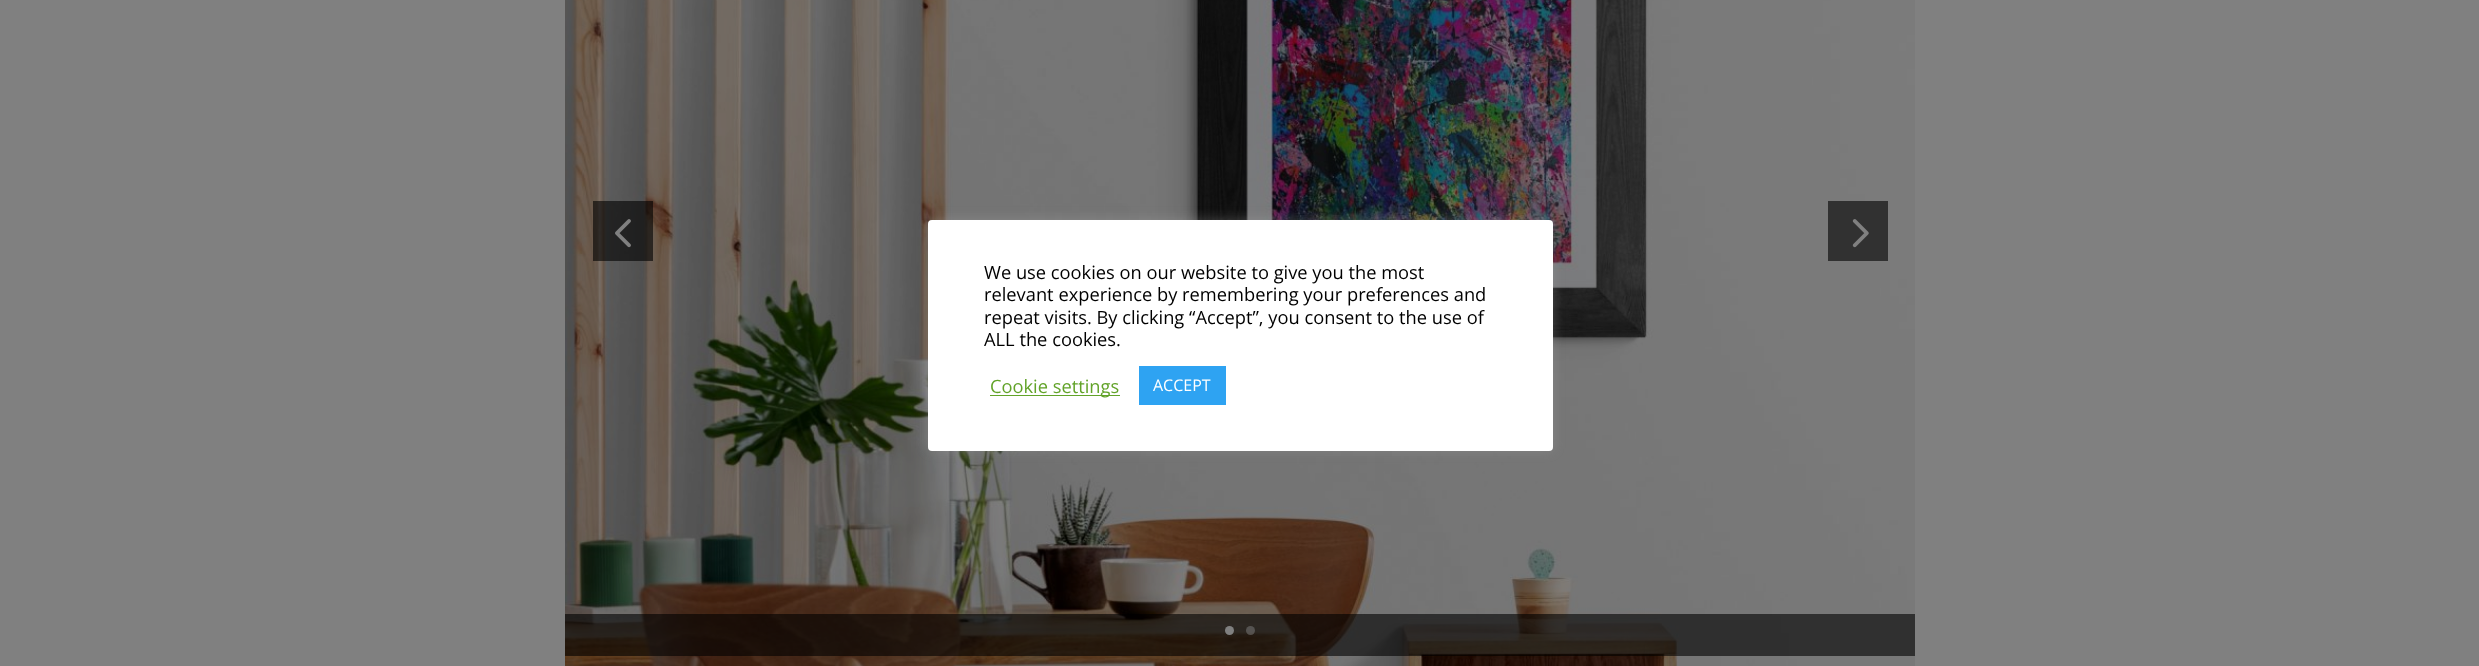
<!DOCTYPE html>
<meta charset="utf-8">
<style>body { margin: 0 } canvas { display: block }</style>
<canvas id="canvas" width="2479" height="666"></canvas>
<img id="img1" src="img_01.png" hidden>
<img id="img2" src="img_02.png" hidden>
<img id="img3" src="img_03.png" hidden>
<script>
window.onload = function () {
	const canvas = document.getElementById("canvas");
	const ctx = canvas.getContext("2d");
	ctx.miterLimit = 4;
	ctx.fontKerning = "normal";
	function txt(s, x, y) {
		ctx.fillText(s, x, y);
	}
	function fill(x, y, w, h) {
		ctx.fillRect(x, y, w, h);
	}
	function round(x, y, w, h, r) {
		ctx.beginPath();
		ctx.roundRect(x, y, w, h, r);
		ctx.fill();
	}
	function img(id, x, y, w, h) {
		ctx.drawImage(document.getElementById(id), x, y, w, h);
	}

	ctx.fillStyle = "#808080";
	fill(0, 0, 2479, 666);
	img("img1", 565, 0, 1350, 666);
	ctx.fillStyle = "rgba(0, 0, 0, 0.6)";
	fill(593, 201, 60, 60);
	img("img2", 615, 219, 16, 29);
	ctx.fillStyle = "#313131";
	fill(1828, 201, 60, 60);
	img("img3", 1852, 219, 17, 29);
	ctx.fillStyle = "rgba(0, 0, 0, 0.6)";
	fill(565, 614, 1350, 42);
	ctx.fillStyle = "#808080";
	ctx.beginPath();
	ctx.arc(1229.5, 630.5, 4.5, 0, Math.PI * 2);
	ctx.fill();
	ctx.fillStyle = "rgba(128, 128, 128, 0.5)";
	ctx.beginPath();
	ctx.arc(1250.5, 630.5, 4.5, 0, Math.PI * 2);
	ctx.fill();
	ctx.fillStyle = "rgba(172, 171, 171, 0.3)";
	ctx.filter = "blur(6px)";
	ctx.beginPath();
	ctx.roundRect(928, 219, 625, 231, 4);
	ctx.fill();
	ctx.filter = "none";
	ctx.fillStyle = "#FFFFFF";
	round(928, 220, 625, 231, 4);
	ctx.fillStyle = "#62A329";
	fill(990, 395, 130, 1);
	ctx.fillStyle = "#2EA3F2";
	fill(1139, 366, 87, 39);
	ctx.font = "18.3px Open Sans";
	ctx.fillStyle = "#000000";
	txt("We use cookies on our website to give you the most", 984, 279);
	txt("relevant experience by remembering your preferences and", 984, 301);
	txt("repeat visits. By clicking “Accept”, you consent to the use of", 984, 324);
	txt("ALL the cookies.", 984, 346);
	ctx.fillStyle = "#62A329";
	txt("Cookie settings", 990, 393);
	ctx.font = "16px Open Sans";
	ctx.fillStyle = "#FFFFFF";
	txt("ACCEPT", 1153, 391);
};
</script>
